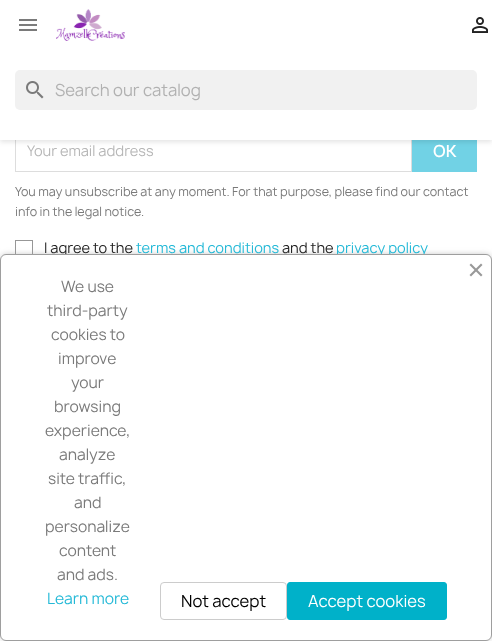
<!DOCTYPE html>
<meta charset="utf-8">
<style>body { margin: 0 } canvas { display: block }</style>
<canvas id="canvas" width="492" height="641"></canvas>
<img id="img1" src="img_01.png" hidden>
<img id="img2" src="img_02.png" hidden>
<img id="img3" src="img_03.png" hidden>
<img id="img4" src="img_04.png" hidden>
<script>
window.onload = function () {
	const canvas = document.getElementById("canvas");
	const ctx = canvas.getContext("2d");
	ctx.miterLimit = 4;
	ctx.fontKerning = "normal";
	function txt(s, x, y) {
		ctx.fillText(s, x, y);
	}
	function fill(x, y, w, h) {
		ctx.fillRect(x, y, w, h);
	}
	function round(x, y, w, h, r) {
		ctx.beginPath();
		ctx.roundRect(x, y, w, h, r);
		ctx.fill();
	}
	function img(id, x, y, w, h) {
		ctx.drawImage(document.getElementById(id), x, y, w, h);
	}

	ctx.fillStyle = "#FFFFFF";
	fill(0, 0, 492, 641);
	ctx.strokeStyle = "#DDDDDD";
	ctx.strokeRect(15.5, 130.5, 396, 41);
	ctx.fillStyle = "#71D2E5";
	fill(412, 140, 65, 32);
	ctx.fillStyle = "rgba(0, 0, 0, 0.11)";
	ctx.filter = "blur(2.5px)";
	ctx.beginPath();
	ctx.rect(0, 2, 492, 140);
	ctx.fill();
	ctx.filter = "none";
	ctx.fillStyle = "#FFFFFF";
	fill(0, 0, 492, 140);
	img("img1", 19, 19, 18, 12);
	img("img2", 56, 9, 69, 32);
	img("img3", 472, 17, 16, 16);
	ctx.fillStyle = "#F1F1F1";
	round(15, 70, 462, 40, 5);
	img("img4", 26, 81, 18, 18);
	ctx.strokeStyle = "#979797";
	ctx.strokeRect(15.5, 240.5, 17, 17);
	ctx.fillStyle = "#9E9E9E";
	ctx.filter = "blur(3.5px)";
	ctx.beginPath();
	ctx.roundRect(2, 256, 488, 383, 4);
	ctx.fill();
	ctx.filter = "none";
	ctx.font = "16px Manrope";
	ctx.fillStyle = "#B1B1B1";
	txt("Search our catalog", 55, 96);
	ctx.font = "14px Manrope";
	ctx.fillStyle = "#B7B7B7";
	txt("Your email address", 27, 156);
	ctx.font = "600 16px Manrope";
	ctx.fillStyle = "#FFFFFF";
	txt("OK", 433, 157);
	ctx.font = "12px Manrope";
	ctx.fillStyle = "#7A7A7A";
	txt("You may unsubscribe at any moment. For that purpose, please find our contact", 15, 196);
	txt("info in the legal notice.", 15, 216);
	ctx.font = "14px Manrope";
	ctx.fillStyle = "#232323";
	txt("I agree to the", 44, 253);
	ctx.fillStyle = "#24B9D7";
	txt("terms and conditions", 136, 253);
	ctx.fillStyle = "#232323";
	txt("and the", 282, 253);
	ctx.fillStyle = "#24B9D7";
	txt("privacy policy", 336, 253);
	ctx.fillStyle = "#FFFFFF";
	ctx.beginPath();
	ctx.roundRect(0.5, 254.5, 491, 386, 5.5);
	ctx.fill();
	ctx.strokeStyle = "#9E9E9E";
	ctx.stroke();
	ctx.fillStyle = "#999999";
	ctx.beginPath();
	ctx.moveTo(469.5, 275);
	ctx.lineTo(481, 263.5);
	ctx.lineTo(482.5, 265);
	ctx.lineTo(471, 276.5);
	ctx.closePath();
	ctx.fill();
	ctx.beginPath();
	ctx.moveTo(471, 263.5);
	ctx.lineTo(482.5, 275);
	ctx.lineTo(481, 276.5);
	ctx.lineTo(469.5, 265);
	ctx.closePath();
	ctx.fill();
	ctx.font = "15px Manrope";
	ctx.fillStyle = "#7A7A7A";
	txt("We use", 61, 292);
	txt("third-party", 47, 316);
	txt("cookies to", 51, 340);
	txt("improve", 58, 364);
	txt("your", 71, 388);
	txt("browsing", 54, 412);
	txt("experience,", 45, 436);
	txt("analyze", 59, 460);
	txt("site traffic,", 48, 484);
	txt("and", 74, 508);
	txt("personalize", 45, 532);
	txt("content", 59, 556);
	txt("and ads.", 57, 580);
	ctx.fillStyle = "#24B9D7";
	txt("Learn more", 47, 604);
	ctx.beginPath();
	ctx.roundRect(160.5, 582.5, 126, 37, 3.5);
	ctx.strokeStyle = "#CCCCCC";
	ctx.stroke();
	ctx.font = "16px Manrope";
	ctx.fillStyle = "#000000";
	txt("Not accept", 181, 607);
	ctx.fillStyle = "#00B1C9";
	ctx.beginPath();
	ctx.roundRect(287.5, 582.5, 159, 37, 2.5);
	ctx.fill();
	ctx.strokeStyle = "#00B1C9";
	ctx.stroke();
	ctx.fillStyle = "#FFFFFF";
	txt("Accept cookies", 308, 607);
};
</script>
